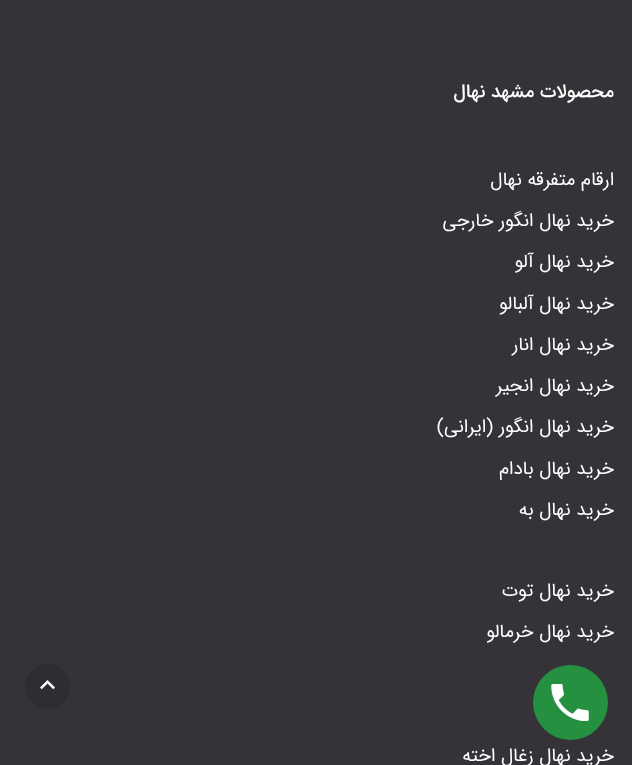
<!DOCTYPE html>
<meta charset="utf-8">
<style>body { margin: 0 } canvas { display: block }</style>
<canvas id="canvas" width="632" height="765"></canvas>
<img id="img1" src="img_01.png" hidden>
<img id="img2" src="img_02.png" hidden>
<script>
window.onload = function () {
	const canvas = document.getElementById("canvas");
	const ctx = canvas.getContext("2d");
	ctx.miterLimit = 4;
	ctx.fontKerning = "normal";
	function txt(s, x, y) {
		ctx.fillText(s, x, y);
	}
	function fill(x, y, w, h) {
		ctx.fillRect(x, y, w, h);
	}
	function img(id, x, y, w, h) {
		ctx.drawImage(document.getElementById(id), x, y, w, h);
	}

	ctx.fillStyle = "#353338";
	fill(0, 0, 632, 765);
	ctx.fillStyle = "#2E2D31";
	ctx.beginPath();
	ctx.arc(47.5, 686.5, 22.5, 0, Math.PI * 2);
	ctx.fill();
	img("img1", 40, 680, 15, 10);
	ctx.fillStyle = "#269041";
	ctx.beginPath();
	ctx.arc(570.5, 702.5, 37.5, 0, Math.PI * 2);
	ctx.fill();
	img("img2", 551, 684, 38, 37);
	ctx.direction = "rtl";
	ctx.font = "500 18.75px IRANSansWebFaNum";
	ctx.fillStyle = "#FFFFFF";
	txt("محصولات مشهد نهال", 614, 97);
	ctx.font = "18.75px IRANSansWebFaNum";
	txt("ارقام متفرقه نهال", 614, 185);
	txt("خرید نهال انگور خارجی", 614, 226);
	txt("خرید نهال آلو", 614, 267);
	txt("خرید نهال آلبالو", 614, 309);
	txt("خرید نهال انار", 614, 350);
	txt("خرید نهال انجیر", 614, 391);
	txt("خرید نهال انگور (ایرانی)", 614, 432);
	txt("خرید نهال بادام", 614, 474);
	txt("خرید نهال به", 614, 515);
	txt("خرید نهال توت", 614, 596);
	txt("خرید نهال خرمالو", 614, 637);
	txt("خرید نهال زغال اخته", 614, 761);
};
</script>
